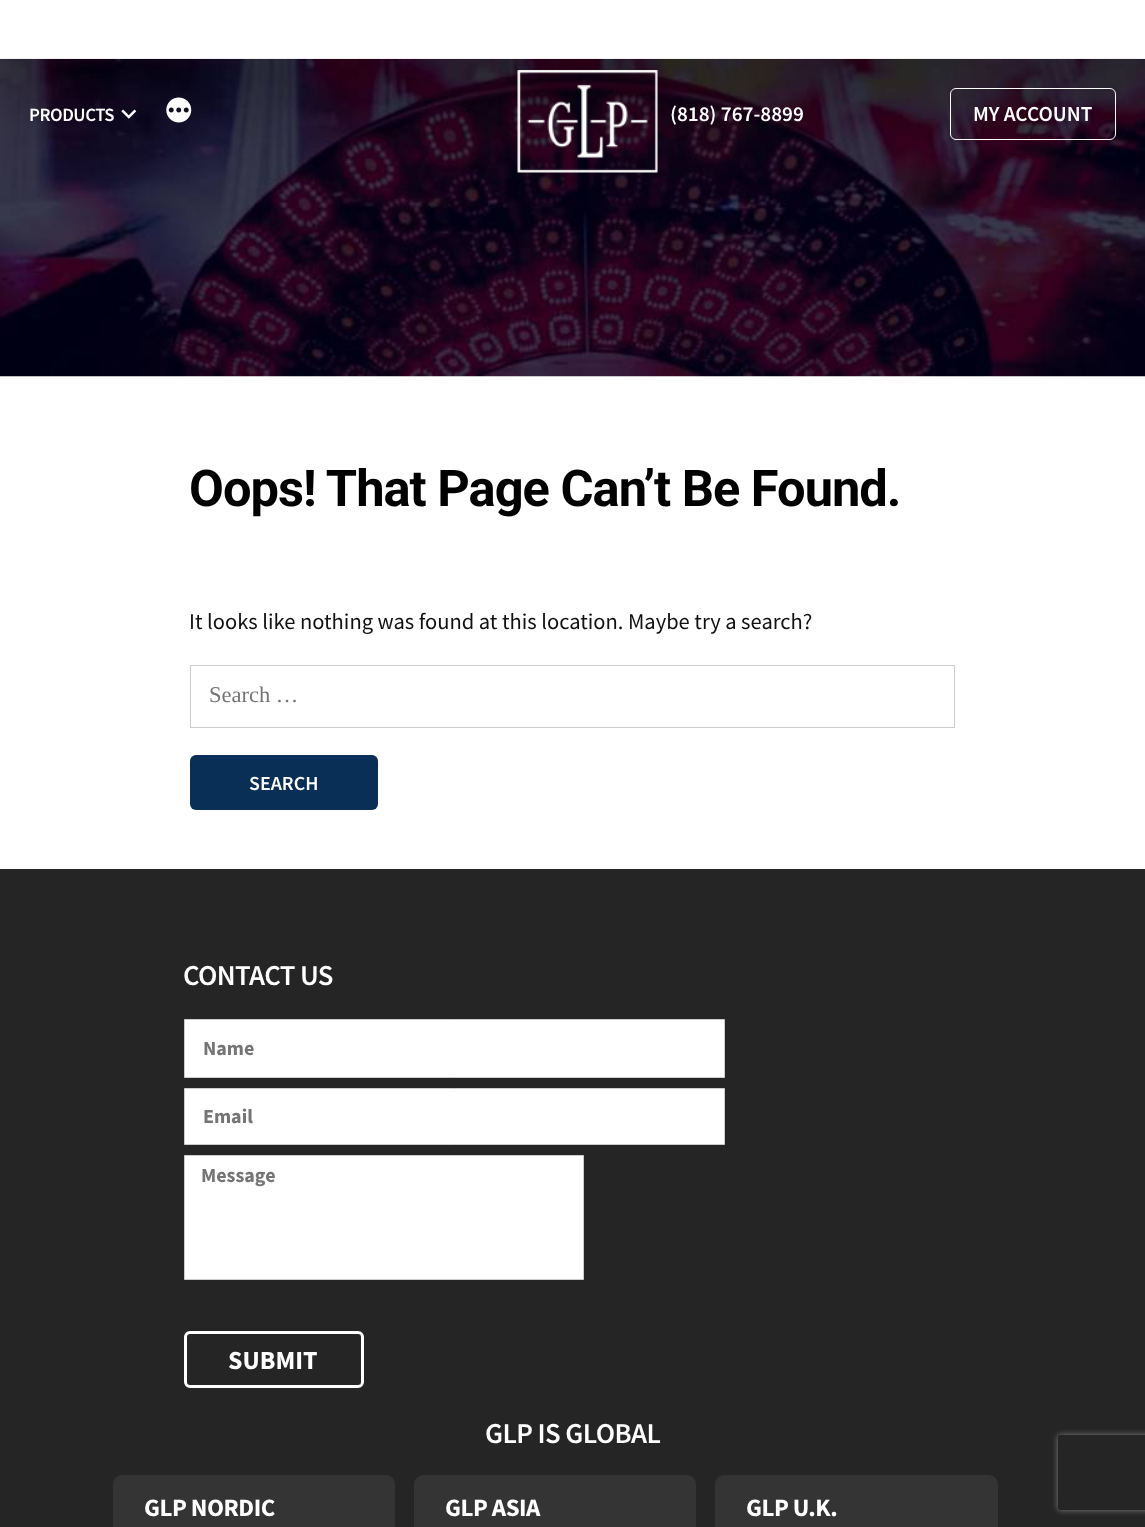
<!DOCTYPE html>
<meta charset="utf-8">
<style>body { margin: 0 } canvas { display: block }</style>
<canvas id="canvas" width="1145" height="1527"></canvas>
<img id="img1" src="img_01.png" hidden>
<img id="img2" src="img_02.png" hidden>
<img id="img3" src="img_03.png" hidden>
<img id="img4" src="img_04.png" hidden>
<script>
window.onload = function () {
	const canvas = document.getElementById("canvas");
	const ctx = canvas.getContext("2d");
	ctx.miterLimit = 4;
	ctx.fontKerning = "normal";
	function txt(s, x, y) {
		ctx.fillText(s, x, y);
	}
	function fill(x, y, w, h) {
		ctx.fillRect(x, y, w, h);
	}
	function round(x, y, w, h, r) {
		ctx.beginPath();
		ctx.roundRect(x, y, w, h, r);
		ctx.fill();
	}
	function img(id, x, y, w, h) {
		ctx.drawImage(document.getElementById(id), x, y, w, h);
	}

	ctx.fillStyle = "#FFFFFF";
	fill(0, 0, 1145, 1527);
	img("img1", 0, 58, 1145, 319);
	img("img2", 121, 109, 16, 10);
	img("img3", 166, 97, 26, 26);
	img("img4", 517, 70, 141, 103);
	ctx.beginPath();
	ctx.roundRect(950.5, 88.5, 165, 51, 5.5);
	ctx.strokeStyle = "#FFFFFF";
	ctx.stroke();
	ctx.strokeStyle = "#CCCCCC";
	ctx.strokeRect(190.5, 665.5, 764, 62);
	ctx.fillStyle = "#092F57";
	round(190, 755, 188, 55, 6);
	ctx.fillStyle = "#252525";
	fill(0, 869, 1145, 658);
	ctx.fillStyle = "#FFFFFF";
	ctx.beginPath();
	ctx.rect(184.5, 1019.5, 540, 58);
	ctx.fill();
	ctx.stroke();
	ctx.beginPath();
	ctx.rect(184.5, 1088.5, 540, 56);
	ctx.fill();
	ctx.stroke();
	ctx.beginPath();
	ctx.rect(184.5, 1155.5, 399, 124);
	ctx.fill();
	ctx.stroke();
	ctx.beginPath();
	ctx.roundRect(185.5, 1332.5, 177, 54, 4.5);
	ctx.strokeStyle = "#FFFFFF";
	ctx.lineWidth = 3;
	ctx.stroke();
	ctx.fillStyle = "#343434";
	round(113, 1475, 282, 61, 9);
	round(414, 1475, 282, 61, 9);
	round(715, 1475, 283, 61, 9);
	ctx.save();
	ctx.beginPath();
	ctx.moveTo(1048, 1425);
	ctx.lineTo(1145, 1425);
	ctx.lineTo(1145, 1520);
	ctx.lineTo(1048, 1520);
	ctx.closePath();
	ctx.moveTo(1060.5, 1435);
	ctx.lineTo(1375.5, 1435);
	ctx.bezierCurveTo(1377, 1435, 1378, 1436, 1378, 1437.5);
	ctx.lineTo(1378, 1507.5);
	ctx.bezierCurveTo(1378, 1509, 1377, 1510, 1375.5, 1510);
	ctx.lineTo(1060.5, 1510);
	ctx.bezierCurveTo(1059, 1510, 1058, 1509, 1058, 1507.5);
	ctx.lineTo(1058, 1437.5);
	ctx.bezierCurveTo(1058, 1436, 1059, 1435, 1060.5, 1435);
	ctx.closePath();
	ctx.clip("evenodd");
	ctx.fillStyle = "#808080";
	ctx.filter = "blur(3px)";
	ctx.beginPath();
	ctx.roundRect(1058, 1435, 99, 75, 2.5);
	ctx.fill();
	ctx.filter = "none";
	ctx.restore();
	ctx.letterSpacing = "-0.5px";
	ctx.font = "600 18.75px Source Sans Pro";
	ctx.fillStyle = "#FFFFFF";
	txt("PRODUCTS", 29, 121);
	ctx.letterSpacing = "0px";
	ctx.font = "600 21.25px Source Sans Pro";
	txt("(818) 767-8899", 670, 121);
	txt("MY ACCOUNT", 973, 121);
	ctx.letterSpacing = "-1px";
	ctx.font = "bold 50.6px Roboto";
	ctx.fillStyle = "#000000";
	txt("Oops! That Page Can’t Be Found.", 189, 506);
	ctx.letterSpacing = "0px";
	ctx.font = "22.5px Source Sans Pro";
	ctx.fillStyle = "#111111";
	txt("It looks like nothing was found at this location. Maybe try a search?", 189, 629);
	ctx.font = "22.5px Liberation Serif";
	ctx.fillStyle = "#757575";
	txt("Search …", 209, 702);
	ctx.font = "600 20px Source Sans Pro";
	ctx.fillStyle = "#FFFFFF";
	txt("SEARCH", 249, 790);
	ctx.letterSpacing = "-0.6px";
	ctx.font = "600 28.75px Source Sans Pro";
	txt("CONTACT US", 183, 985);
	ctx.letterSpacing = "0px";
	ctx.font = "bold 20px Source Sans Pro";
	ctx.fillStyle = "#757575";
	txt("Name", 203, 1055);
	txt("Email", 203, 1123);
	txt("Message", 201, 1182);
	ctx.font = "bold 26px Source Sans Pro";
	ctx.fillStyle = "#FFFFFF";
	txt("SUBMIT", 228, 1369);
	ctx.letterSpacing = "-0.6px";
	ctx.font = "600 28.75px Source Sans Pro";
	txt("GLP IS GLOBAL", 485, 1443);
	ctx.letterSpacing = "-0.5px";
	ctx.font = "bold 25px Source Sans Pro";
	txt("GLP NORDIC", 144, 1516);
	txt("GLP ASIA", 445, 1516);
	txt("GLP U.K.", 746, 1516);
};
</script>
